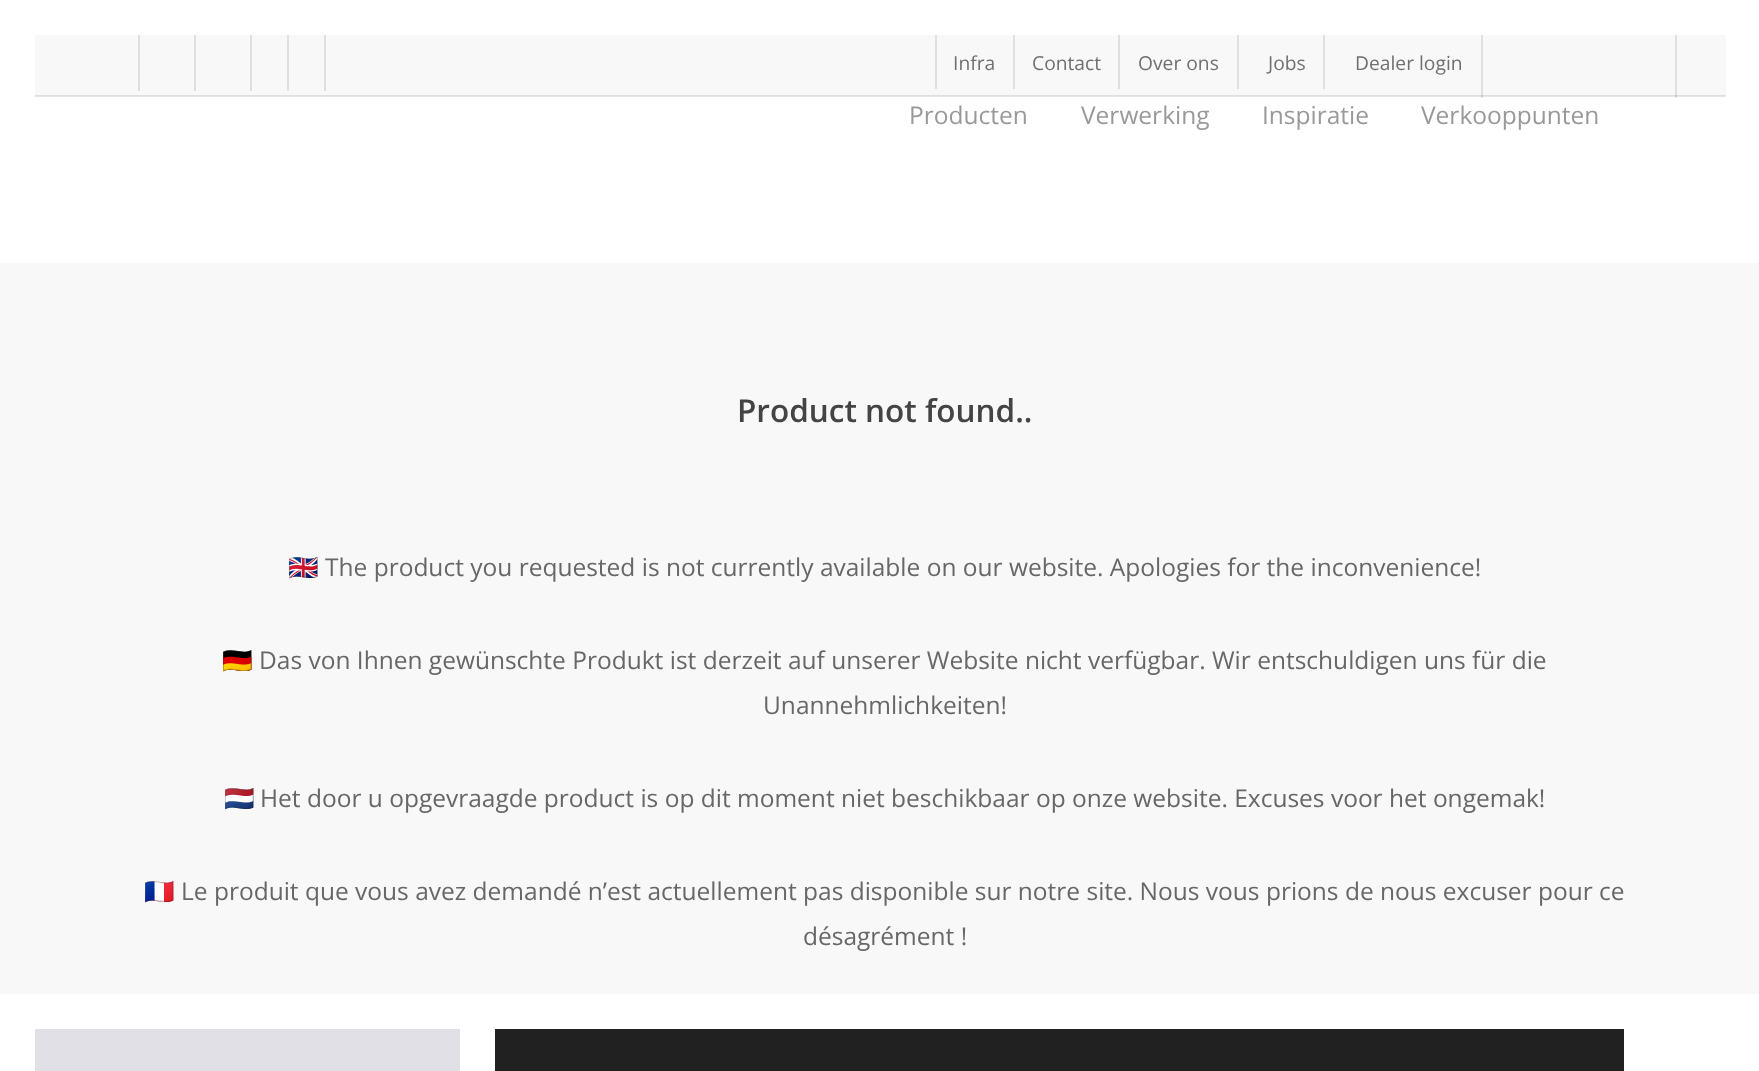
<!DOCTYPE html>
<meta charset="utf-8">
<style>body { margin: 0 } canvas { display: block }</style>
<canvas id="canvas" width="1759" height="1071"></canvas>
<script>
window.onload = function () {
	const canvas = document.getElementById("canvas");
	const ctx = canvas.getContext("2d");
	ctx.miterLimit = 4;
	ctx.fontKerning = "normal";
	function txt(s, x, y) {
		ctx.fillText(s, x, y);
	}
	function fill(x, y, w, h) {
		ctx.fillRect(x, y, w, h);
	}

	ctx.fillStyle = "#FFFFFF";
	fill(0, 0, 1759, 1071);
	ctx.fillStyle = "#E6E6E6";
	fill(1481, 97, 2, 1);
	fill(1675, 97, 2, 1);
	fill(35, 96, 1691, 1);
	ctx.fillStyle = "#CFCFCF";
	fill(1481, 96, 2, 1);
	fill(1675, 96, 2, 1);
	ctx.fillStyle = "#F8F8F8";
	fill(35, 35, 1691, 60);
	ctx.fillStyle = "#DFDFDF";
	fill(1481, 35, 2, 61);
	fill(1675, 35, 2, 61);
	fill(35, 95, 1691, 1);
	ctx.fillStyle = "#C9C9C9";
	fill(1481, 95, 2, 1);
	fill(1675, 95, 2, 1);
	ctx.fillStyle = "#DFDFDF";
	fill(138, 35, 2, 56);
	fill(194, 35, 2, 56);
	fill(250, 35, 2, 56);
	fill(324, 35, 2, 56);
	fill(287, 35, 2, 56);
	fill(935, 35, 2, 54);
	fill(1013, 35, 2, 54);
	fill(1118, 35, 2, 54);
	fill(1237, 35, 2, 54);
	fill(1323, 35, 2, 54);
	ctx.fillStyle = "#F8F8F8";
	fill(0, 263, 1759, 731);
	ctx.fillStyle = "#E1E0E7";
	fill(35, 1029, 425, 42);
	ctx.fillStyle = "#212121";
	fill(495, 1029, 1129, 42);
	ctx.font = "19.25px Open Sans";
	ctx.fillStyle = "#707070";
	txt("Infra", 953, 70);
	txt("Contact", 1032, 70);
	txt("Over ons", 1138, 70);
	txt("Jobs", 1268, 70);
	txt("Dealer login", 1355, 70);
	ctx.font = "24.5px Open Sans";
	ctx.fillStyle = "#999999";
	txt("Producten", 909, 124);
	txt("Verwerking", 1081, 124);
	txt("Inspiratie", 1262, 124);
	txt("Verkooppunten", 1421, 124);
	ctx.font = "600 31.5px Open Sans";
	ctx.fillStyle = "#444444";
	txt("Product not found..", 737, 422);
	ctx.font = "24.5px Noto Color Emoji";
	ctx.fillStyle = "#676767";
	txt("🇬🇧", 288, 576);
	ctx.font = "24.5px Open Sans";
	txt("The product you requested is not currently available on our website. Apologies for the inconvenience!", 325, 576);
	ctx.font = "24.5px Noto Color Emoji";
	txt("🇩🇪", 222, 669);
	ctx.font = "24.5px Open Sans";
	txt("Das von Ihnen gewünschte Produkt ist derzeit auf unserer Website nicht verfügbar. Wir entschuldigen uns für die", 259, 669);
	txt("Unannehmlichkeiten!", 763, 714);
	ctx.font = "24.5px Noto Color Emoji";
	txt("🇳🇱", 224, 807);
	ctx.font = "24.5px Open Sans";
	txt("Het door u opgevraagde product is op dit moment niet beschikbaar op onze website. Excuses voor het ongemak!", 260, 807);
	ctx.font = "24.5px Noto Color Emoji";
	txt("🇫🇷", 144, 900);
	ctx.font = "24.5px Open Sans";
	txt("Le produit que vous avez demandé n’est actuellement pas disponible sur notre site. Nous vous prions de nous excuser pour ce", 181, 900);
	txt("désagrément !", 803, 945);
};
</script>
